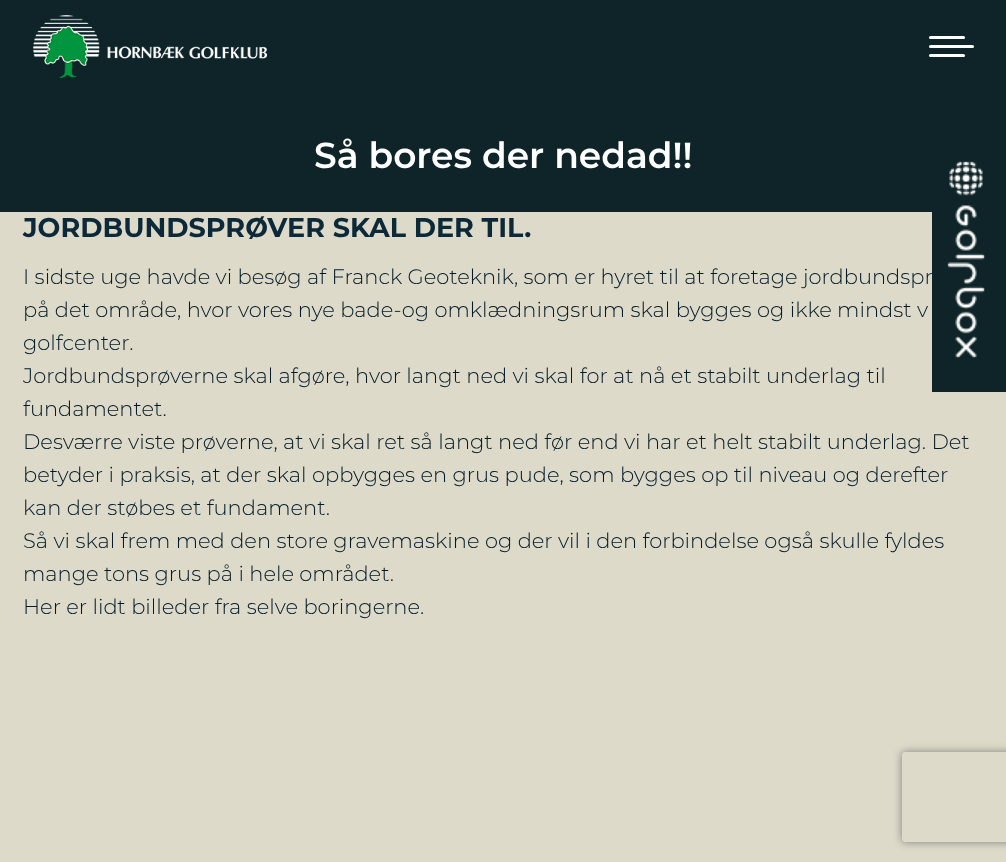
<!DOCTYPE html>
<meta charset="utf-8">
<style>body { margin: 0 } canvas { display: block }</style>
<canvas id="canvas" width="1006" height="862"></canvas>
<img id="img1" src="img_01.png" hidden>
<img id="img2" src="img_02.png" hidden>
<script>
window.onload = function () {
	const canvas = document.getElementById("canvas");
	const ctx = canvas.getContext("2d");
	ctx.miterLimit = 4;
	ctx.fontKerning = "normal";
	function txt(s, x, y) {
		ctx.fillText(s, x, y);
	}
	function fill(x, y, w, h) {
		ctx.fillRect(x, y, w, h);
	}
	function round(x, y, w, h, r) {
		ctx.beginPath();
		ctx.roundRect(x, y, w, h, r);
		ctx.fill();
	}
	function img(id, x, y, w, h) {
		ctx.drawImage(document.getElementById(id), x, y, w, h);
	}

	ctx.fillStyle = "#DDDAC9";
	fill(0, 0, 1006, 862);
	ctx.fillStyle = "#0E2428";
	fill(0, 0, 1006, 212);
	img("img1", 33, 15, 234, 63);
	ctx.fillStyle = "#FFFFFF";
	round(929, 36, 36, 3, 1.5);
	round(929, 45, 45, 3, 1.5);
	round(929, 54, 36, 3, 1.5);
	ctx.fillStyle = "#0E2428";
	fill(932, 212, 74, 180);
	img("img2", 947, 161, 38, 197);
	ctx.save();
	ctx.beginPath();
	ctx.moveTo(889, 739);
	ctx.lineTo(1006, 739);
	ctx.lineTo(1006, 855);
	ctx.lineTo(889, 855);
	ctx.closePath();
	ctx.moveTo(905, 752);
	ctx.lineTo(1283, 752);
	ctx.bezierCurveTo(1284.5, 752, 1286, 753.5, 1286, 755);
	ctx.lineTo(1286, 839);
	ctx.bezierCurveTo(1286, 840.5, 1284.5, 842, 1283, 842);
	ctx.lineTo(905, 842);
	ctx.bezierCurveTo(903.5, 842, 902, 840.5, 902, 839);
	ctx.lineTo(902, 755);
	ctx.bezierCurveTo(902, 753.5, 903.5, 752, 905, 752);
	ctx.closePath();
	ctx.clip("evenodd");
	ctx.fillStyle = "#808080";
	ctx.filter = "blur(4px)";
	ctx.beginPath();
	ctx.roundRect(902, 752, 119, 90, 3);
	ctx.fill();
	ctx.filter = "none";
	ctx.restore();
	ctx.font = "600 36px Montserrat";
	ctx.fillStyle = "#FFFFFF";
	txt("Så bores der nedad!!", 314, 168);
	ctx.font = "bold 27px Montserrat";
	ctx.fillStyle = "#0C2939";
	txt("JORDBUNDSPRØVER SKAL DER TIL.", 23, 237);
	ctx.font = "300 21px Montserrat";
	ctx.fillStyle = "#041B29";
	txt("I sidste uge havde vi besøg af Franck Geoteknik, som er hyret til at foretage jordbundspr", 23, 284);
	txt("på det område, hvor vores nye bade-og omklædningsrum skal bygges og ikke mindst v", 23, 317);
	txt("golfcenter.", 23, 350);
	txt("Jordbundsprøverne skal afgøre, hvor langt ned vi skal for at nå et stabilt underlag til", 23, 383);
	txt("fundamentet.", 23, 416);
	txt("Desværre viste prøverne, at vi skal ret så langt ned før end vi har et helt stabilt underlag. Det", 23, 449);
	txt("betyder i praksis, at der skal opbygges en grus pude, som bygges op til niveau og derefter", 23, 482);
	txt("kan der støbes et fundament.", 23, 515);
	txt("Så vi skal frem med den store gravemaskine og der vil i den forbindelse også skulle fyldes", 23, 548);
	txt("mange tons grus på i hele området.", 23, 581);
	txt("Her er lidt billeder fra selve boringerne.", 23, 614);
};
</script>
